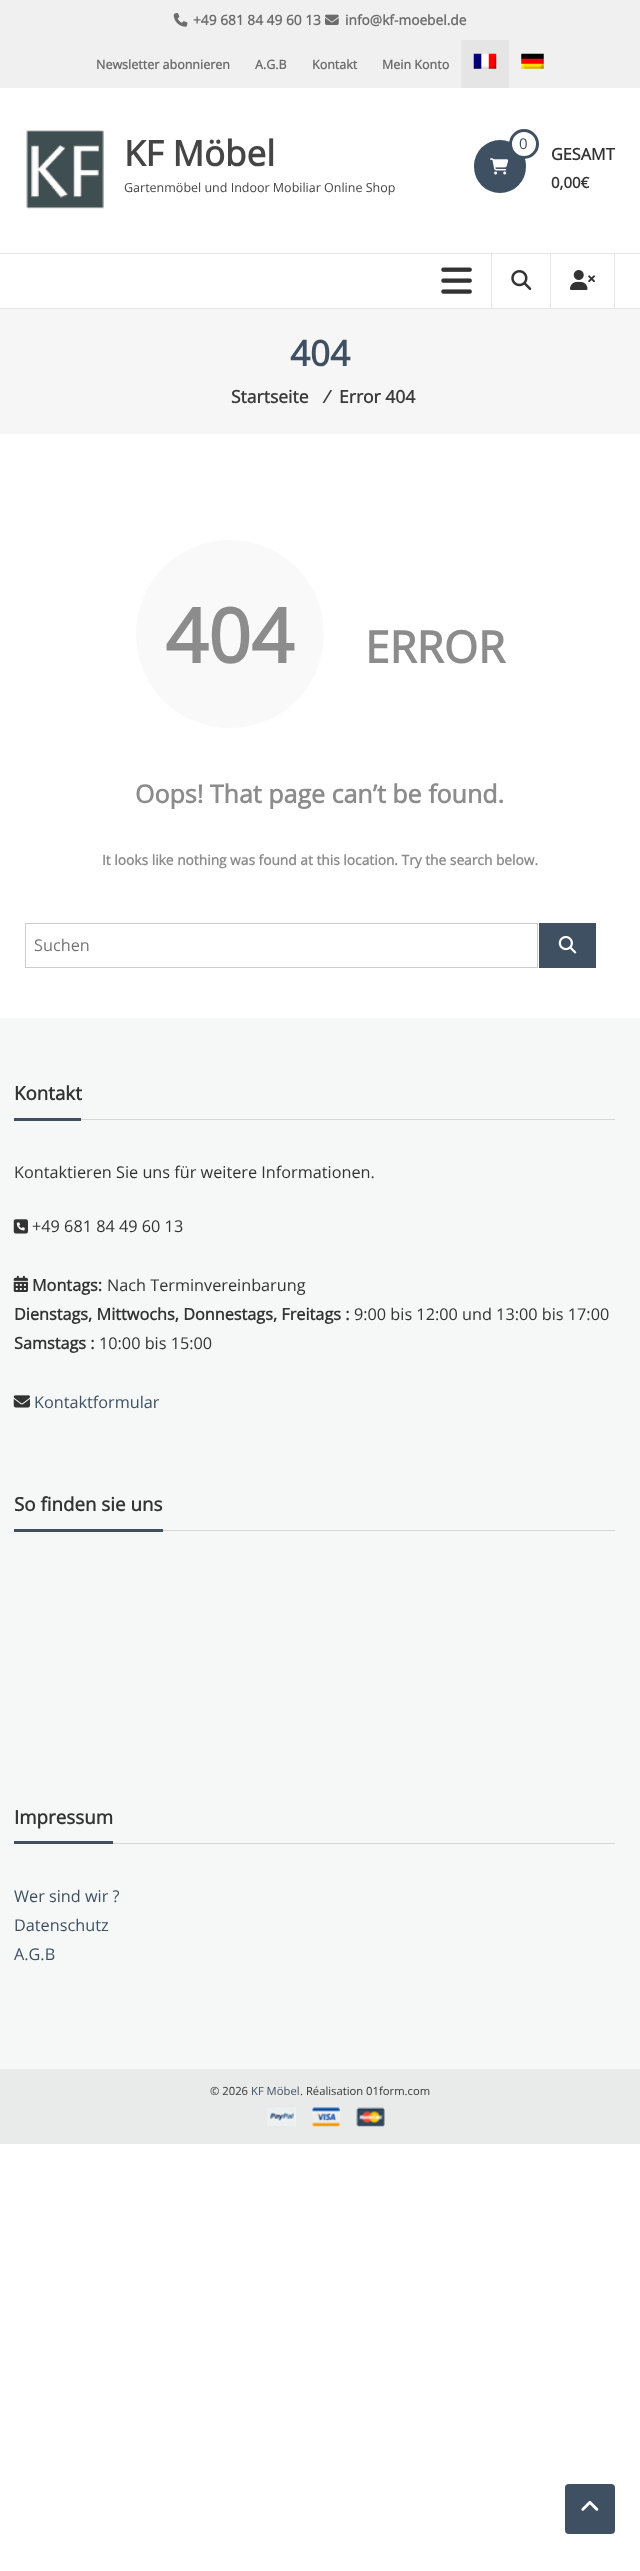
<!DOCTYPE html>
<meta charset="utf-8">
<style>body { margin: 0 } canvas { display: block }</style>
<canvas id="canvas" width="640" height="2571"></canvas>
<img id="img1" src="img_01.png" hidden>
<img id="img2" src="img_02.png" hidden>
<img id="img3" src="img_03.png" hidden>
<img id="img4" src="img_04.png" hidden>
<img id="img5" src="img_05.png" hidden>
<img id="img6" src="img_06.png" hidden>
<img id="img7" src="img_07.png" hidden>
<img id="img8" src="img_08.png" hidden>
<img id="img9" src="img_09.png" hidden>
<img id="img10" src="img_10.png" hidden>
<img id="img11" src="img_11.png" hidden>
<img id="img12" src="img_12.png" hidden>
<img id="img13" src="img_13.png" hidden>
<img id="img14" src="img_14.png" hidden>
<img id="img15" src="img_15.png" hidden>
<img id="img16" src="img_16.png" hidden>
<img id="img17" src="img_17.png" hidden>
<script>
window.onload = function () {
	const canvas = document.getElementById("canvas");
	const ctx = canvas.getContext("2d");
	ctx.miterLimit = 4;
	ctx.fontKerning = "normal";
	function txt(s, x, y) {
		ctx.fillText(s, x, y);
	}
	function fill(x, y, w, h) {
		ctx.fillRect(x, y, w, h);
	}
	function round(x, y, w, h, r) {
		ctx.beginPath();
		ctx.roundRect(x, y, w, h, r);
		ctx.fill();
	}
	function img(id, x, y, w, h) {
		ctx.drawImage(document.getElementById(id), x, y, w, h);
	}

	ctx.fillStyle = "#FFFFFF";
	fill(0, 0, 640, 2571);
	ctx.fillStyle = "#F0F0F0";
	fill(0, 0, 640, 88);
	img("img1", 173, 13, 15, 14);
	img("img2", 325, 14, 14, 11);
	ctx.fillStyle = "#E5E5E5";
	fill(461, 40, 48, 48);
	img("img3", 473, 53, 24, 16);
	img("img4", 521, 53, 23, 16);
	img("img5", 26, 130, 78, 79);
	ctx.fillStyle = "#3E5062";
	round(474, 140, 52, 53, 26);
	ctx.fillStyle = "#FFFFFF";
	ctx.beginPath();
	ctx.arc(524, 144, 13.5, 0, Math.PI * 2);
	ctx.fill();
	ctx.strokeStyle = "#3E5062";
	ctx.lineWidth = 3;
	ctx.stroke();
	img("img6", 490, 158, 19, 17);
	ctx.fillStyle = "#E5E5E5";
	fill(0, 253, 640, 1);
	fill(0, 308, 640, 1);
	img("img7", 441, 267, 31, 27);
	fill(491, 254, 1, 54);
	img("img8", 511, 270, 21, 20);
	fill(614, 254, 1, 54);
	fill(550, 254, 1, 54);
	img("img9", 570, 270, 25, 20);
	ctx.fillStyle = "#F6F6F6";
	fill(0, 309, 640, 125);
	ctx.fillStyle = "#F9F9F9";
	ctx.beginPath();
	ctx.arc(230, 634, 94, 0, Math.PI * 2);
	ctx.fill();
	ctx.strokeStyle = "#CCCCCC";
	ctx.lineWidth = 1;
	ctx.strokeRect(25.5, 923.5, 512, 44);
	ctx.fillStyle = "#3E5062";
	fill(539, 923, 57, 45);
	img("img10", 558, 935, 19, 19);
	ctx.fillStyle = "#F6F7F7";
	fill(0, 1018, 640, 1051);
	ctx.fillStyle = "#D6D6D6";
	fill(81, 1119, 534, 1);
	ctx.fillStyle = "#3E5062";
	fill(14, 1118, 67, 3);
	img("img11", 13, 1219, 15, 15);
	img("img12", 13, 1275, 15, 17);
	img("img13", 13, 1395, 17, 13);
	ctx.fillStyle = "#D6D6D6";
	fill(163, 1530, 452, 1);
	ctx.fillStyle = "#3E5062";
	fill(14, 1529, 149, 3);
	ctx.fillStyle = "#D6D6D6";
	fill(113, 1843, 502, 1);
	ctx.fillStyle = "#3E5062";
	fill(14, 1841, 99, 3);
	ctx.fillStyle = "#E9EBEB";
	fill(0, 2069, 640, 75);
	img("img14", 267, 2107, 29, 19);
	img("img15", 312, 2107, 28, 20);
	img("img16", 356, 2107, 29, 20);
	ctx.fillStyle = "#3E5062";
	round(565, 2484, 50, 50, 4);
	img("img17", 581, 2501, 18, 10);
	ctx.font = "bold 13.75px Open Sans";
	ctx.fillStyle = "#6D6C6C";
	txt("+49 681 84 49 60 13", 193, 25);
	txt("info@kf-moebel.de", 345, 25);
	ctx.font = "bold 12.5px Open Sans";
	txt("Newsletter abonnieren", 96, 69);
	txt("A.G.B", 255, 69);
	txt("Kontakt", 312, 69);
	txt("Mein Konto", 382, 69);
	ctx.font = "bold 35px Open Sans";
	ctx.fillStyle = "#454545";
	txt("KF Möbel", 124, 166);
	ctx.font = "12.5px Open Sans";
	txt("Gartenmöbel und Indoor Mobiliar Online Shop", 124, 192);
	ctx.font = "15px Open Sans";
	ctx.fillStyle = "#3E5062";
	txt("0", 519, 149);
	ctx.font = "bold 16.25px Open Sans";
	ctx.fillStyle = "#333333";
	txt("GESAMT", 551, 160);
	ctx.font = "bold 15px Open Sans";
	txt("0,00€", 551, 188);
	ctx.font = "bold 35px Open Sans";
	ctx.fillStyle = "#3E5062";
	txt("404", 290, 366);
	ctx.font = "bold 17.5px Open Sans";
	ctx.fillStyle = "#3B3B3B";
	txt("Startseite", 231, 403);
	txt("⁄", 326, 403);
	txt("Error 404", 339, 403);
	ctx.font = "bold 75px Open Sans";
	ctx.fillStyle = "#8C8C8C";
	txt("404", 165, 663);
	ctx.font = "bold 44px Open Sans";
	txt("ERROR", 365, 663);
	ctx.font = "bold 25px Open Sans";
	txt("Oops! That page can’t be found.", 135, 803);
	ctx.font = "bold 13.75px Open Sans";
	txt("It looks like nothing was found at this location. Try the search below.", 102, 865);
	ctx.font = "16.25px Open Sans";
	ctx.fillStyle = "#757575";
	txt("Suchen", 34, 951);
	ctx.font = "bold 18.75px Open Sans";
	ctx.fillStyle = "#333333";
	txt("Kontakt", 14, 1100);
	ctx.font = "16.25px Open Sans";
	txt("Kontaktieren Sie uns für weitere Informationen.", 14, 1178);
	txt("+49 681 84 49 60 13", 32, 1232);
	ctx.font = "bold 16.25px Open Sans";
	txt("Montags:", 32, 1291);
	ctx.font = "16.25px Open Sans";
	txt("Nach Terminvereinbarung", 107, 1291);
	ctx.font = "bold 16.25px Open Sans";
	txt("Dienstags, Mittwochs, Donnestags, Freitags :", 14, 1320);
	ctx.font = "16.25px Open Sans";
	txt("9:00 bis 12:00 und 13:00 bis 17:00", 354, 1320);
	ctx.font = "bold 16.25px Open Sans";
	txt("Samstags :", 14, 1349);
	ctx.font = "16.25px Open Sans";
	txt("10:00 bis 15:00", 99, 1349);
	ctx.fillStyle = "#3E5062";
	txt("Kontaktformular", 34, 1408);
	ctx.font = "bold 18.75px Open Sans";
	ctx.fillStyle = "#333333";
	txt("So finden sie uns", 14, 1511);
	txt("Impressum", 14, 1824);
	ctx.font = "16.25px Open Sans";
	ctx.fillStyle = "#3E5062";
	txt("Wer sind wir ?", 14, 1902);
	txt("Datenschutz", 14, 1931);
	txt("A.G.B", 14, 1960);
	ctx.font = "11.25px Open Sans";
	ctx.fillStyle = "#333333";
	txt("© 2026", 210, 2095);
	ctx.fillStyle = "#3E5062";
	txt("KF Möbel", 251, 2095);
	ctx.fillStyle = "#333333";
	txt(". Réalisation 01form.com", 300, 2095);
};
</script>
